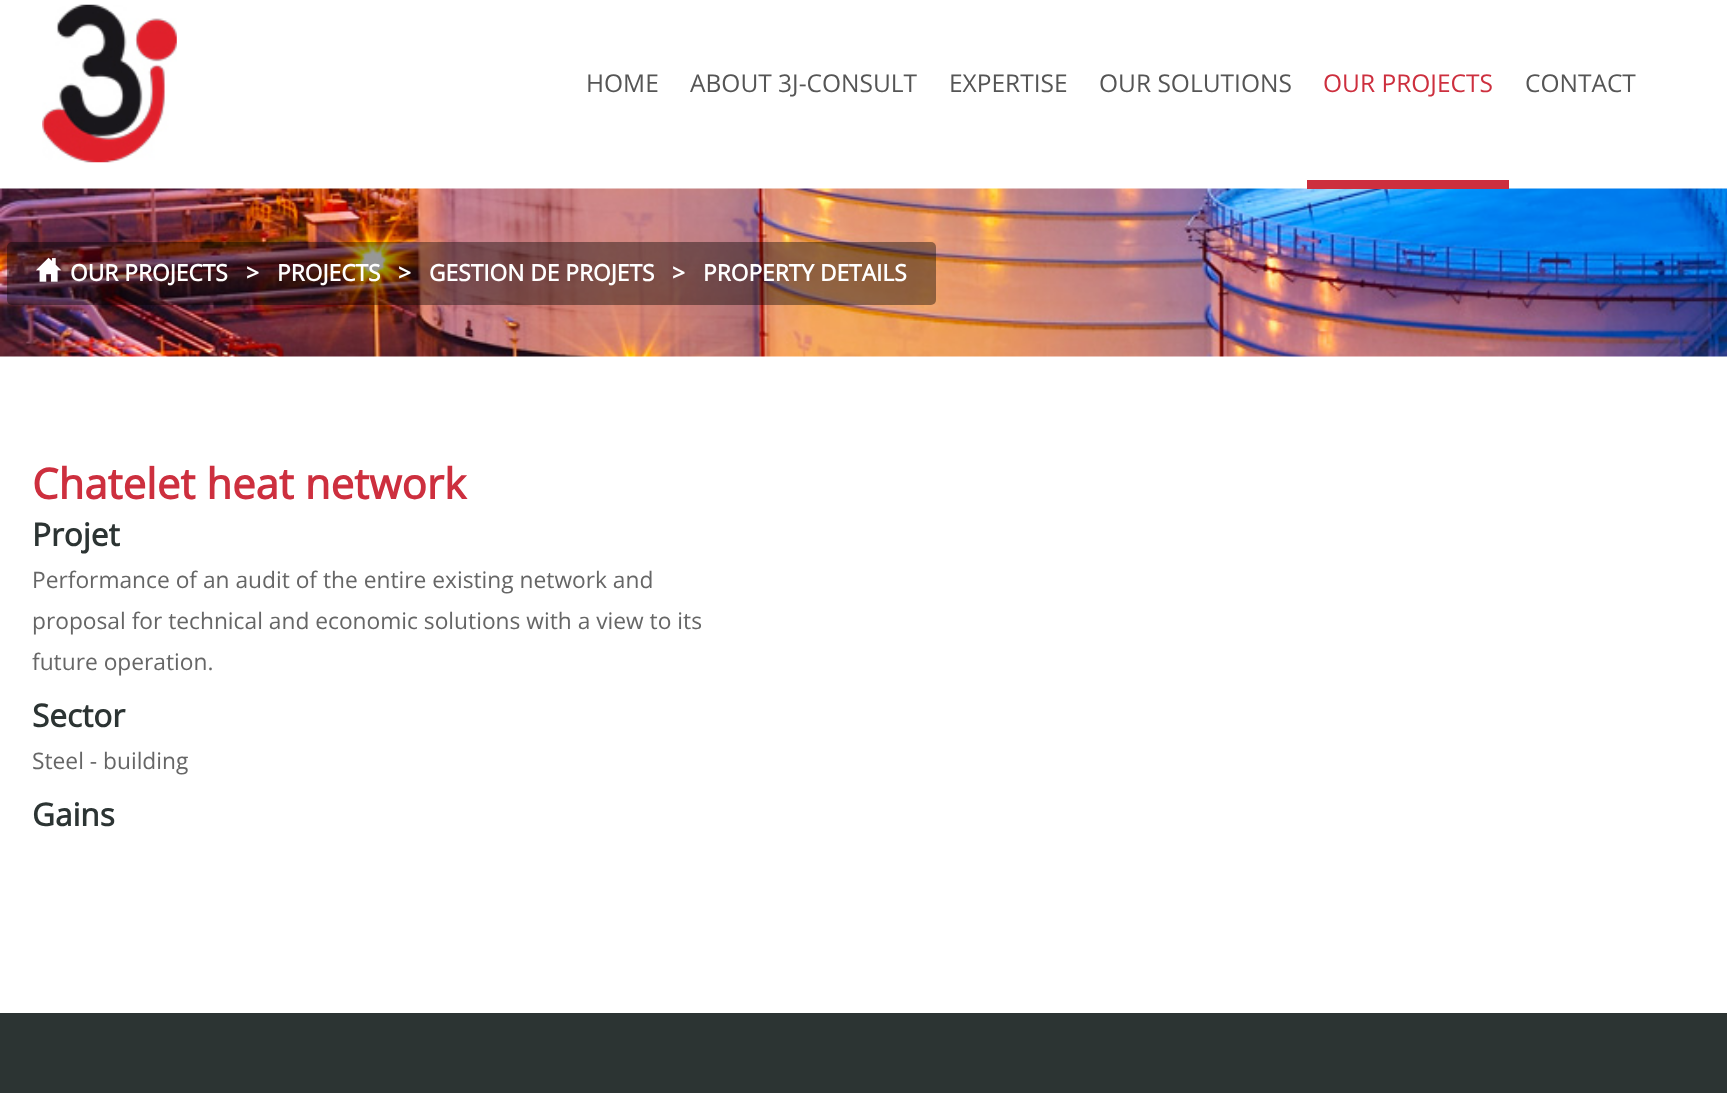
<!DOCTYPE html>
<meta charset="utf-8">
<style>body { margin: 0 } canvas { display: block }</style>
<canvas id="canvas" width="1727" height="1093"></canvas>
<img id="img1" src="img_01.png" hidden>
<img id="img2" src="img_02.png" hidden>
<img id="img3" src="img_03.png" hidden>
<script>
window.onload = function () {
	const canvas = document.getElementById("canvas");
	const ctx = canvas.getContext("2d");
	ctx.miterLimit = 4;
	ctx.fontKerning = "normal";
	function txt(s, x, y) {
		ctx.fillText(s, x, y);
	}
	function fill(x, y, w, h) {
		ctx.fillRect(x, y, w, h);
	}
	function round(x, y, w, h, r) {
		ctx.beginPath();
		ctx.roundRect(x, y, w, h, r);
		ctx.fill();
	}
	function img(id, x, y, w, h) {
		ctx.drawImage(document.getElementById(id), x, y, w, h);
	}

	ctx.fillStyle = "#FFFFFF";
	fill(0, 0, 1727, 1093);
	img("img1", 42, 4, 135, 159);
	img("img2", 0, 188, 1727, 169);
	ctx.fillStyle = "#CD2F3E";
	fill(1307, 180, 202, 9);
	ctx.fillStyle = "rgba(0, 0, 0, 0.4)";
	round(7, 242, 929, 63, 5);
	img("img3", 36, 257, 26, 25);
	ctx.fillStyle = "#2C3433";
	fill(0, 1013, 1727, 80);
	ctx.font = "24.5px Open Sans";
	ctx.fillStyle = "#555555";
	txt("HOME", 586, 92);
	txt("ABOUT 3J-CONSULT", 690, 92);
	txt("EXPERTISE", 949, 92);
	txt("OUR SOLUTIONS", 1099, 92);
	ctx.fillStyle = "#CD2F3E";
	txt("OUR PROJECTS", 1323, 92);
	ctx.fillStyle = "#555555";
	txt("CONTACT", 1525, 92);
	ctx.font = "bold 22.75px Open Sans";
	ctx.fillStyle = "#FFFFFF";
	txt("OUR PROJECTS", 70, 281);
	txt(">", 246, 281);
	txt("PROJECTS", 277, 281);
	txt(">", 398, 281);
	txt("GESTION DE PROJETS", 429, 281);
	txt(">", 672, 281);
	txt("PROPERTY DETAILS", 703, 281);
	ctx.font = "bold 42px Open Sans";
	ctx.fillStyle = "#CD2F3E";
	txt("Chatelet heat network", 32, 499);
	ctx.font = "bold 31.5px Open Sans";
	ctx.fillStyle = "#2C3433";
	txt("Projet", 32, 546);
	ctx.font = "22.75px Open Sans";
	ctx.fillStyle = "#666666";
	txt("Performance of an audit of the entire existing network and", 32, 588);
	txt("proposal for technical and economic solutions with a view to its", 32, 629);
	txt("future operation.", 32, 670);
	ctx.font = "bold 31.5px Open Sans";
	ctx.fillStyle = "#2C3433";
	txt("Sector", 32, 727);
	ctx.font = "22.75px Open Sans";
	ctx.fillStyle = "#666666";
	txt("Steel - building", 32, 769);
	ctx.font = "bold 31.5px Open Sans";
	ctx.fillStyle = "#2C3433";
	txt("Gains", 32, 826);
};
</script>
